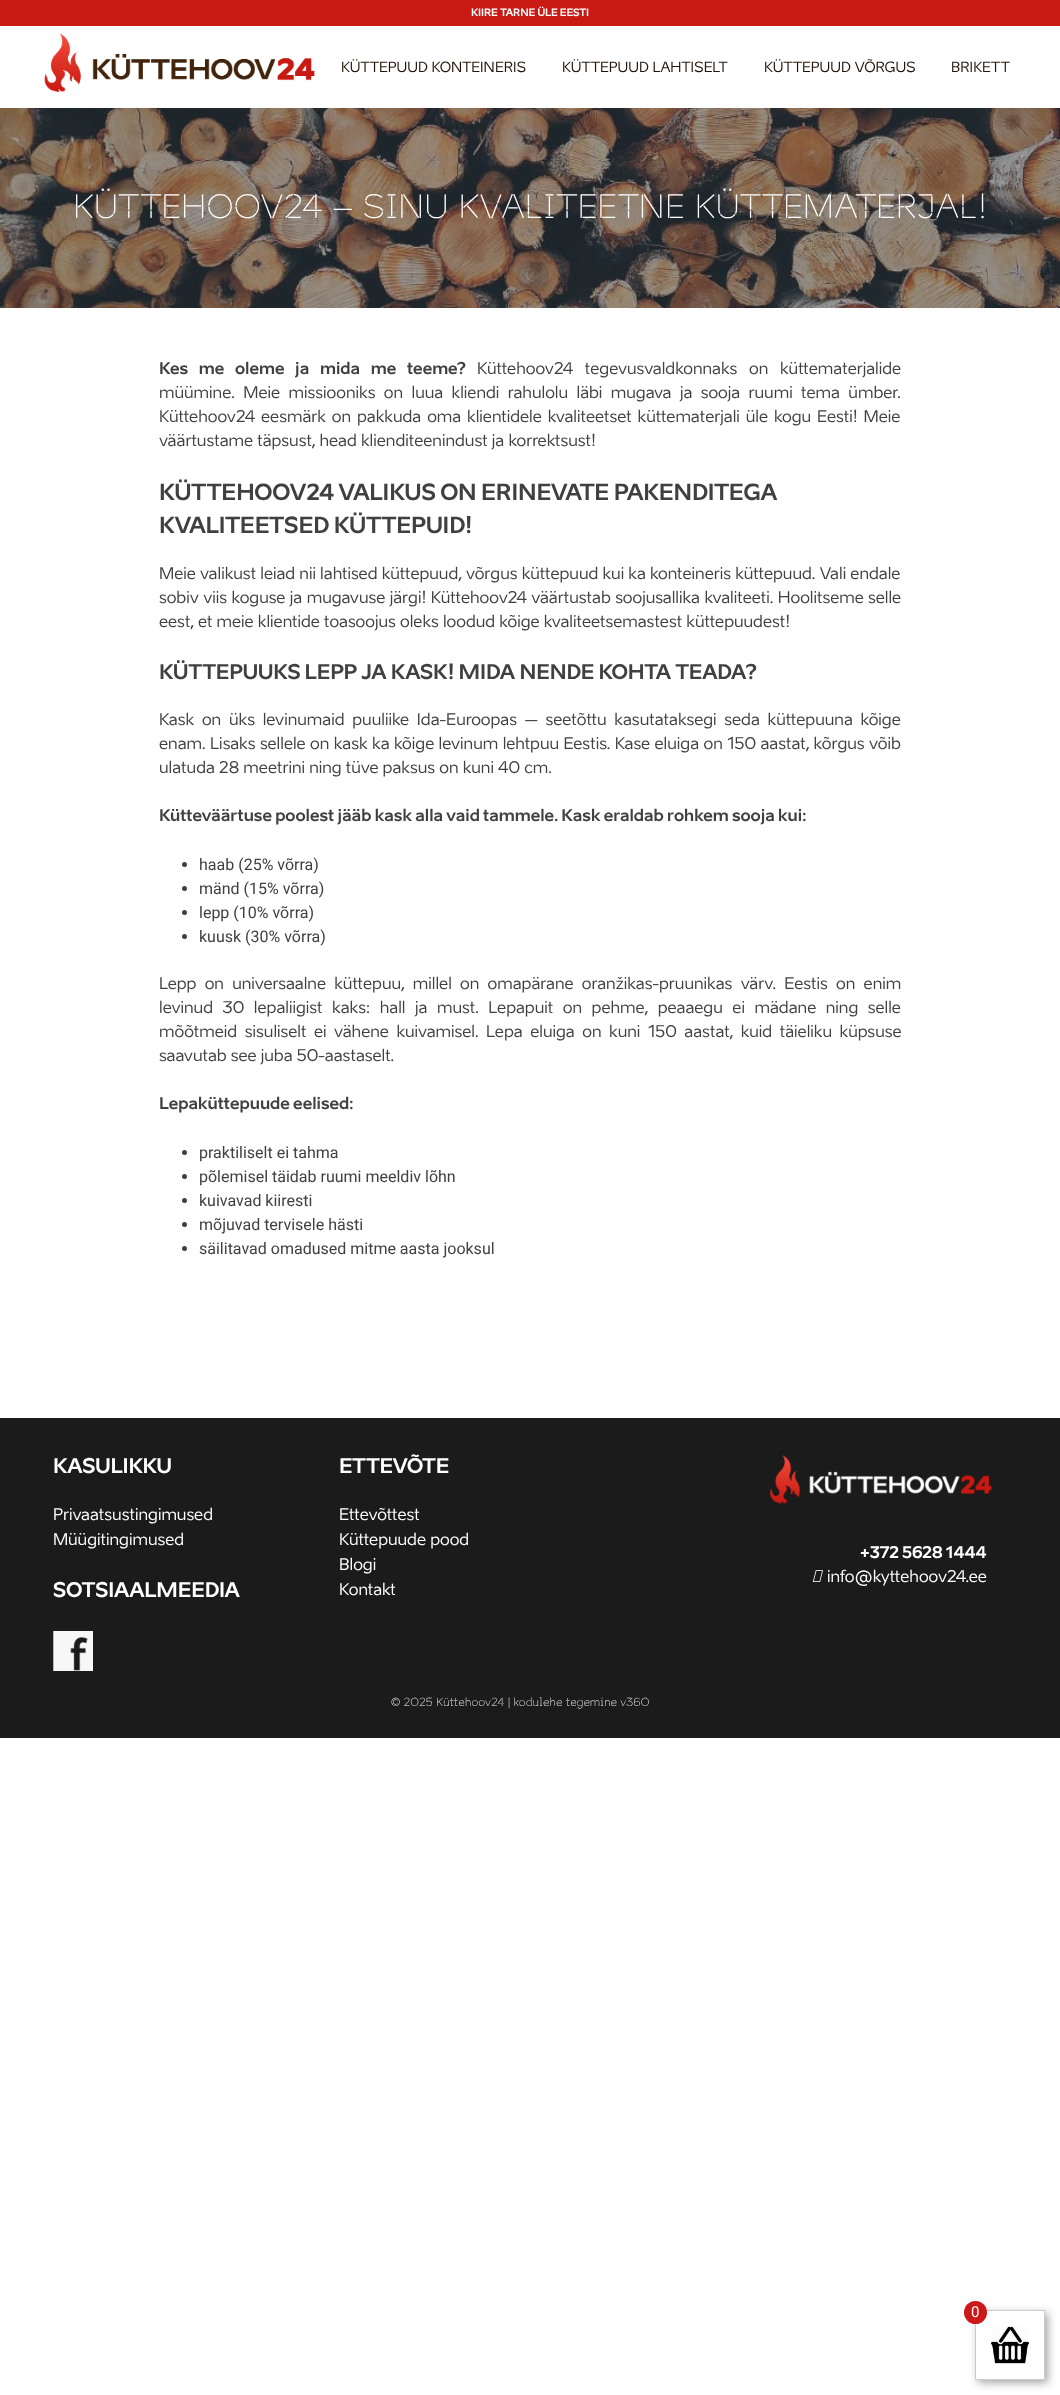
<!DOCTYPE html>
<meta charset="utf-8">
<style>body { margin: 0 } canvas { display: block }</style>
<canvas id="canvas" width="1060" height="2395"></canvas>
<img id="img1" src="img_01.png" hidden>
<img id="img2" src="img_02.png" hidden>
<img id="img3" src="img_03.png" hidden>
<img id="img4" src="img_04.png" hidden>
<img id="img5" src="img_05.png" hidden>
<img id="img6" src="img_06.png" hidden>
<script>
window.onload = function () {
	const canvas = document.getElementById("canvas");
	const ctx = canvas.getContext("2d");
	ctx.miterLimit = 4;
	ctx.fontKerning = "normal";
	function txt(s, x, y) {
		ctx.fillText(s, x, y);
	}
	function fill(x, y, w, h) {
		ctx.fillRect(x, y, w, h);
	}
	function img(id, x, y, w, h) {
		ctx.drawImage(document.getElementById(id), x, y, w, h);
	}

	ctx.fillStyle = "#FFFFFF";
	fill(0, 0, 1060, 2395);
	ctx.fillStyle = "#C81912";
	fill(0, 0, 1060, 26);
	img("img1", 44, 33, 271, 60);
	img("img2", 0, 108, 1060, 200);
	ctx.fillStyle = "#404040";
	ctx.beginPath();
	ctx.arc(184.5, 864.5, 2.5, 0, Math.PI * 2);
	ctx.fill();
	ctx.beginPath();
	ctx.arc(184.5, 888.5, 2.5, 0, Math.PI * 2);
	ctx.fill();
	ctx.beginPath();
	ctx.arc(184.5, 912.5, 2.5, 0, Math.PI * 2);
	ctx.fill();
	ctx.beginPath();
	ctx.arc(184.5, 936.5, 2.5, 0, Math.PI * 2);
	ctx.fill();
	ctx.beginPath();
	ctx.arc(184.5, 1152.5, 2.5, 0, Math.PI * 2);
	ctx.fill();
	ctx.beginPath();
	ctx.arc(184.5, 1176.5, 2.5, 0, Math.PI * 2);
	ctx.fill();
	ctx.beginPath();
	ctx.arc(184.5, 1200.5, 2.5, 0, Math.PI * 2);
	ctx.fill();
	ctx.beginPath();
	ctx.arc(184.5, 1224.5, 2.5, 0, Math.PI * 2);
	ctx.fill();
	ctx.beginPath();
	ctx.arc(184.5, 1248.5, 2.5, 0, Math.PI * 2);
	ctx.fill();
	ctx.fillStyle = "#1B1B1B";
	fill(0, 1418, 1060, 320);
	img("img3", 53, 1631, 40, 40);
	img("img4", 769, 1455, 223, 50);
	img("img5", 812, 1570, 11, 12);
	ctx.save();
	ctx.beginPath();
	ctx.moveTo(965, 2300);
	ctx.lineTo(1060, 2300);
	ctx.lineTo(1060, 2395);
	ctx.lineTo(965, 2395);
	ctx.closePath();
	ctx.moveTo(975, 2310);
	ctx.lineTo(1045, 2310);
	ctx.lineTo(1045, 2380);
	ctx.lineTo(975, 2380);
	ctx.closePath();
	ctx.clip("evenodd");
	ctx.fillStyle = "rgba(64, 64, 64, 0.46)";
	ctx.filter = "blur(4px)";
	ctx.beginPath();
	ctx.rect(978, 2313, 70, 70);
	ctx.fill();
	ctx.filter = "none";
	ctx.restore();
	ctx.strokeStyle = "#CCCCCC";
	ctx.strokeRect(975.5, 2310.5, 69, 69);
	ctx.fillStyle = "#CC1818";
	ctx.beginPath();
	ctx.arc(975.5, 2312.5, 11.5, 0, Math.PI * 2);
	ctx.fill();
	img("img6", 991, 2326, 38, 38);
	ctx.font = "bold 10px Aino";
	ctx.fillStyle = "#FFFFFF";
	txt("KIIRE TARNE ÜLE EESTI", 471, 16);
	ctx.font = "14px Aino";
	ctx.fillStyle = "#231409";
	txt("KÜTTEPUUD KONTEINERIS", 341, 72);
	txt("KÜTTEPUUD LAHTISELT", 562, 72);
	txt("KÜTTEPUUD VÕRGUS", 764, 72);
	txt("BRIKETT", 951, 72);
	ctx.font = "32px 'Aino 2'";
	ctx.fillStyle = "#FFFFFF";
	txt("KÜTTEHOOV24 – SINU KVALITEETNE KÜTTEMATERJAL!", 73, 218);
	ctx.wordSpacing = "7.5px";
	ctx.font = "bold 16px Aino";
	ctx.fillStyle = "#404040";
	txt("Kes me oleme ja mida me teeme?", 159, 374);
	ctx.font = "16px Aino";
	txt("Küttehoov24 tegevusvaldkonnaks on küttematerjalide", 477, 374);
	ctx.wordSpacing = "4.25px";
	txt("müümine. Meie missiooniks on luua kliendi rahulolu läbi mugava ja sooja ruumi tema ümber.", 159, 398);
	ctx.wordSpacing = "1.75px";
	txt("Küttehoov24 eesmärk on pakkuda oma klientidele kvaliteetset küttematerjali üle kogu Eesti! Meie", 159, 422);
	ctx.wordSpacing = "0px";
	txt("väärtustame täpsust, head klienditeenindust ja korrektsust!", 159, 446);
	ctx.font = "bold 22px Aino";
	txt("KÜTTEHOOV24 VALIKUS ON ERINEVATE PAKENDITEGA", 159, 500);
	txt("KVALITEETSED KÜTTEPUID!", 159, 533);
	ctx.font = "16px Aino";
	txt("Meie valikust leiad nii lahtised küttepuud, võrgus küttepuud kui ka konteineris küttepuud. Vali endale", 159, 579);
	ctx.wordSpacing = "0.25px";
	txt("sobiv viis koguse ja mugavuse järgi! Küttehoov24 väärtustab soojusallika kvaliteeti. Hoolitseme selle", 159, 603);
	ctx.wordSpacing = "0px";
	txt("eest, et meie klientide toasoojus oleks loodud kõige kvaliteetsemastest küttepuudest!", 159, 627);
	ctx.font = "bold 20px Aino";
	txt("KÜTTEPUUKS LEPP JA KASK! MIDA NENDE KOHTA TEADA?", 159, 679);
	ctx.wordSpacing = "3.6px";
	ctx.font = "16px Aino";
	txt("Kask on üks levinumaid puuliike Ida-Euroopas – seetõttu kasutataksegi seda küttepuuna kõige", 159, 725);
	ctx.wordSpacing = "0.25px";
	txt("enam. Lisaks sellele on kask ka kõige levinum lehtpuu Eestis. Kase eluiga on 150 aastat, kõrgus võib", 159, 749);
	ctx.wordSpacing = "0px";
	txt("ulatuda 28 meetrini ning tüve paksus on kuni 40 cm.", 159, 773);
	ctx.font = "bold 16px Aino";
	txt("Kütteväärtuse poolest jääb kask alla vaid tammele. Kask eraldab rohkem sooja kui:", 159, 821);
	ctx.font = "16px Roboto";
	txt("haab (25% võrra)", 199, 870);
	txt("mänd (15% võrra)", 199, 894);
	txt("lepp (10% võrra)", 199, 918);
	txt("kuusk (30% võrra)", 199, 942);
	ctx.wordSpacing = "4.1px";
	ctx.font = "16px Aino";
	txt("Lepp on universaalne küttepuu, millel on omapärane oranžikas-pruunikas värv. Eestis on enim", 159, 989);
	ctx.wordSpacing = "5.4px";
	txt("levinud 30 lepaliigist kaks: hall ja must. Lepapuit on pehme, peaaegu ei mädane ning selle", 159, 1013);
	ctx.wordSpacing = "3.4px";
	txt("mõõtmeid sisuliselt ei vähene kuivamisel. Lepa eluiga on kuni 150 aastat, kuid täieliku küpsuse", 159, 1037);
	ctx.wordSpacing = "0px";
	txt("saavutab see juba 50-aastaselt.", 159, 1061);
	ctx.font = "bold 16px Aino";
	txt("Lepaküttepuude eelised:", 159, 1109);
	ctx.font = "16px Roboto";
	txt("praktiliselt ei tahma", 199, 1158);
	txt("põlemisel täidab ruumi meeldiv lõhn", 199, 1182);
	txt("kuivavad kiiresti", 199, 1206);
	txt("mõjuvad tervisele hästi", 199, 1230);
	txt("säilitavad omadused mitme aasta jooksul", 199, 1254);
	ctx.font = "bold 20px Aino";
	ctx.fillStyle = "#FFFFFF";
	txt("KASULIKKU", 53, 1473);
	ctx.font = "16px Aino";
	txt("Privaatsustingimused", 53, 1520);
	txt("Müügitingimused", 53, 1545);
	ctx.font = "bold 20px Aino";
	txt("SOTSIAALMEEDIA", 53, 1597);
	txt("ETTEVÕTE", 339, 1473);
	ctx.font = "16px Aino";
	txt("Ettevõttest", 339, 1520);
	txt("Küttepuude pood", 339, 1545);
	txt("Blogi", 339, 1570);
	txt("Kontakt", 339, 1595);
	ctx.font = "bold 16px Aino";
	txt("+372 5628 1444", 860, 1558);
	ctx.font = "16px Aino";
	txt("info@kyttehoov24.ee", 827, 1582);
	ctx.font = "11px 'Aino 2'";
	txt("© 2025 Küttehoov24 | kodulehe tegemine v360", 391, 1706);
	ctx.font = "15px Roboto";
	txt("0", 971, 2317);
};
</script>
